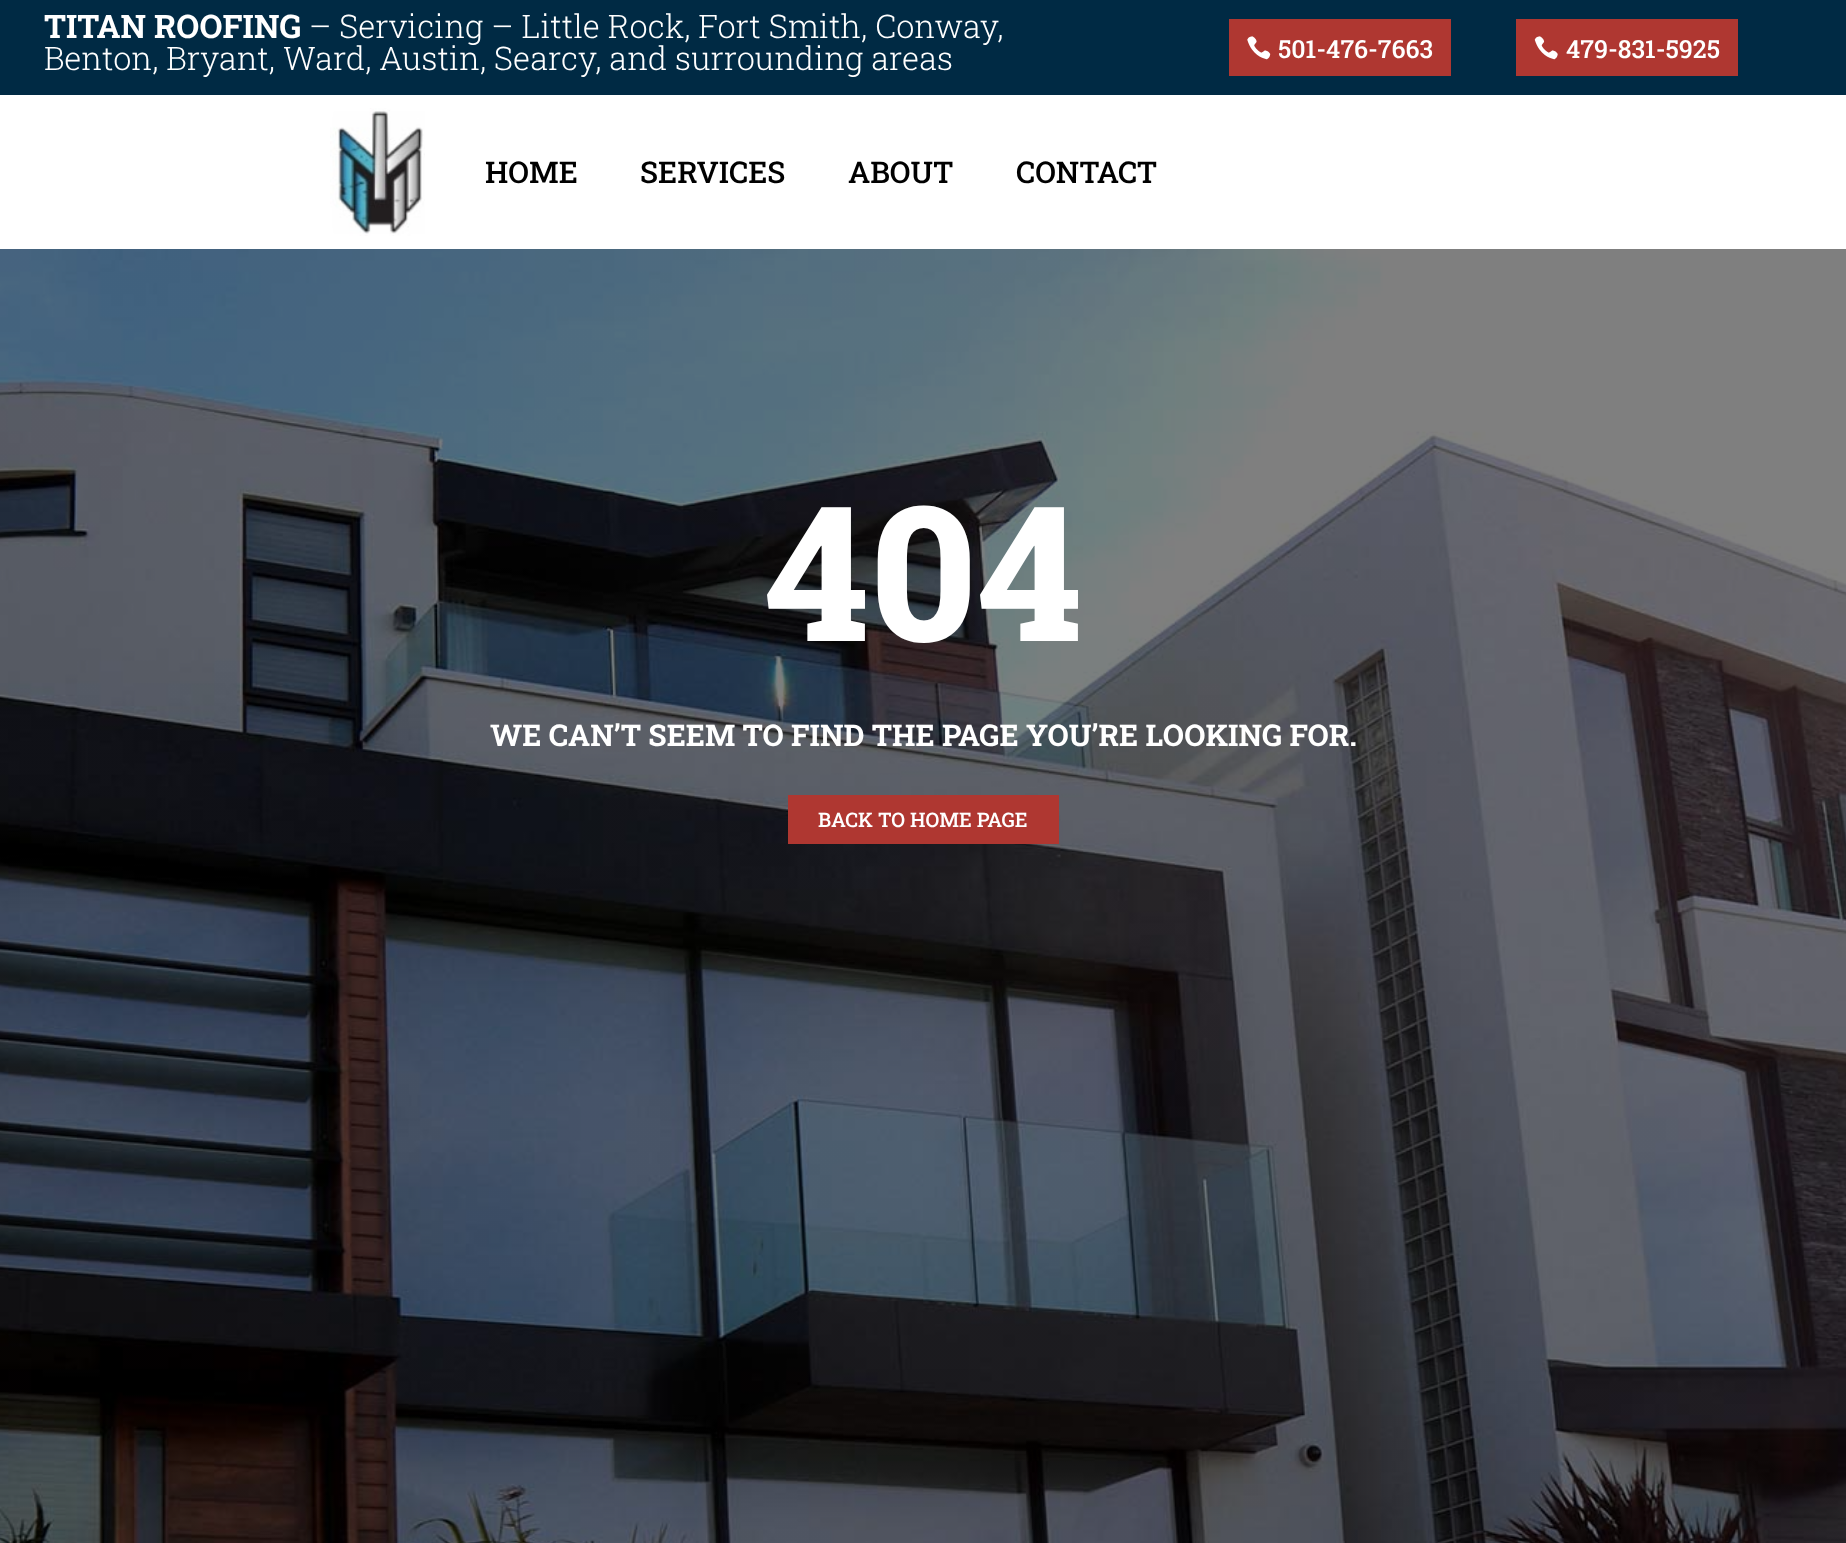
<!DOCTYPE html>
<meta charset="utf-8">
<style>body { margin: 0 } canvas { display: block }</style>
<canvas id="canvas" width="1846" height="1543"></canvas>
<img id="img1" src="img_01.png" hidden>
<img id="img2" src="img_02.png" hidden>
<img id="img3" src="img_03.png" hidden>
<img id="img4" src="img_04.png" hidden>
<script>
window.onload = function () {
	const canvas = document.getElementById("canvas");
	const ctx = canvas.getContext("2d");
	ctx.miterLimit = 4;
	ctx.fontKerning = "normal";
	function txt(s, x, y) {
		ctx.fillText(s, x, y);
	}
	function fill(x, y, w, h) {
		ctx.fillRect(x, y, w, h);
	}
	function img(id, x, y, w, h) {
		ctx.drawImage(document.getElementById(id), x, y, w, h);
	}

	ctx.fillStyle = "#FFFFFF";
	fill(0, 0, 1846, 1543);
	ctx.fillStyle = "#002A44";
	fill(0, 0, 1846, 95);
	ctx.fillStyle = "#AF3731";
	fill(1229, 19, 222, 57);
	img("img1", 1247, 36, 24, 24);
	fill(1516, 19, 222, 57);
	img("img2", 1534, 36, 24, 24);
	img("img3", 330, 108, 95, 128);
	img("img4", 0, 249, 1846, 1294);
	fill(788, 795, 271, 49);
	ctx.font = "bold 32.5px Roboto Slab";
	ctx.fillStyle = "#FFFFFF";
	txt("TITAN ROOFING", 44, 38);
	ctx.font = "300 32.5px Roboto Slab";
	txt("– Servicing – Little Rock, Fort Smith, Conway,", 309, 38);
	txt("Benton, Bryant, Ward, Austin, Searcy, and surrounding areas", 44, 70);
	ctx.font = "500 25px Roboto Slab";
	txt("501-476-7663", 1278, 58);
	txt("479-831-5925", 1566, 58);
	ctx.font = "500 30px Roboto Slab";
	ctx.fillStyle = "#000000";
	txt("HOME", 485, 183);
	txt("SERVICES", 640, 183);
	txt("ABOUT", 848, 183);
	txt("CONTACT", 1016, 183);
	ctx.font = "800 188px Roboto Slab";
	ctx.fillStyle = "#FFFFFF";
	txt("404", 764, 641);
	ctx.font = "bold 30px Roboto Slab";
	txt("WE CAN’T SEEM TO FIND THE PAGE YOU’RE LOOKING FOR.", 490, 746);
	ctx.font = "500 20px Roboto Slab";
	txt("BACK TO HOME PAGE", 818, 827);
};
</script>
